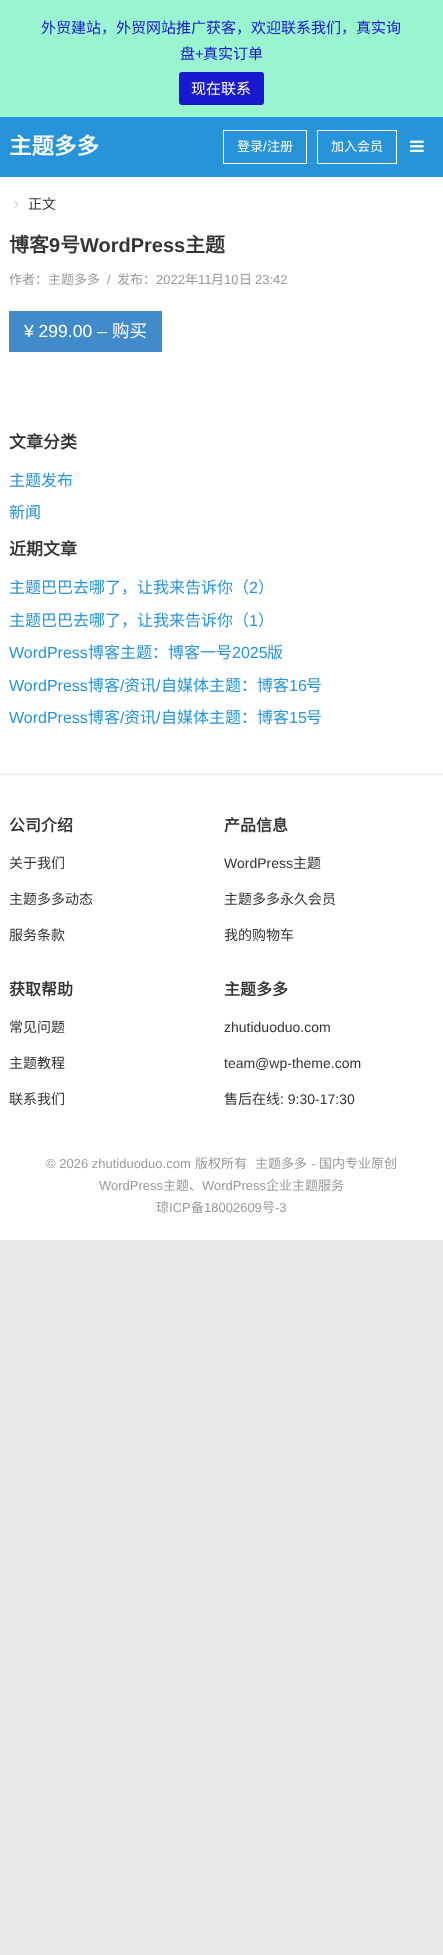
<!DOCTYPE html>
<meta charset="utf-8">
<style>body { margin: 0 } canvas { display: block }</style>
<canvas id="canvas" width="443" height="1955"></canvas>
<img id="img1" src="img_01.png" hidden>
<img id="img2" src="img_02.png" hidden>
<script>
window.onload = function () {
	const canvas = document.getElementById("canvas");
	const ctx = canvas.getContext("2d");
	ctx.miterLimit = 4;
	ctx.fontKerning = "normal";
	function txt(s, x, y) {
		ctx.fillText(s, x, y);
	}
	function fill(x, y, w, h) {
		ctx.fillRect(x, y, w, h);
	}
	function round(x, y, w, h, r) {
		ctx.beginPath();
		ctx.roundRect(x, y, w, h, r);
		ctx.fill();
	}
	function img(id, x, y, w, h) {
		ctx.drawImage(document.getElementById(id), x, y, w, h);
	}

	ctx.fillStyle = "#E9E9E9";
	fill(0, 0, 443, 1955);
	ctx.fillStyle = "#9AF4CF";
	fill(0, 0, 443, 117);
	ctx.fillStyle = "#1919CF";
	round(179, 72, 85, 33, 3);
	ctx.fillStyle = "#FFFFFF";
	fill(0, 177, 443, 1063);
	ctx.fillStyle = "#2794DA";
	fill(0, 117, 443, 60);
	ctx.strokeStyle = "#FFFFFF";
	ctx.strokeRect(223.5, 130.5, 83, 33);
	ctx.strokeRect(317.5, 130.5, 79, 33);
	img("img1", 410, 140, 14, 12);
	img("img2", 14, 200, 5, 9);
	ctx.fillStyle = "#428BCA";
	fill(9, 311, 153, 41);
	ctx.fillStyle = "#E9E9E9";
	fill(0, 774, 443, 1);
	ctx.font = "15px Noto Sans CJK SC";
	ctx.fillStyle = "#1919CF";
	txt("外贸建站，外贸网站推广获客，欢迎联系我们，真实询", 41, 33);
	txt("盘", 180, 59);
	ctx.font = "15px Liberation Sans";
	txt("+", 195, 59);
	ctx.font = "15px Noto Sans CJK SC";
	txt("真实订单", 203, 59);
	ctx.fillStyle = "#FFFFFF";
	txt("现在联系", 191, 94);
	ctx.font = "bold 22.5px Noto Sans CJK SC";
	txt("主题多多", 9, 154);
	ctx.font = "13px Noto Sans CJK SC";
	txt("登录", 237, 151);
	ctx.font = "13px Liberation Sans";
	txt("/", 263, 151);
	ctx.font = "13px Noto Sans CJK SC";
	txt("注册", 267, 151);
	txt("加入会员", 331, 151);
	ctx.font = "14px Noto Sans CJK SC";
	ctx.fillStyle = "#333534";
	txt("正文", 28, 209);
	ctx.font = "bold 20px Noto Sans CJK SC";
	txt("博客", 9, 252);
	ctx.font = "bold 20px Liberation Sans";
	txt("9", 49, 252);
	ctx.font = "bold 20px Noto Sans CJK SC";
	txt("号", 60, 252);
	ctx.font = "bold 20px Liberation Sans";
	txt("WordPress", 80, 252);
	ctx.font = "bold 20px Noto Sans CJK SC";
	txt("主题", 185, 252);
	ctx.font = "13px Noto Sans CJK SC";
	ctx.fillStyle = "#999999";
	txt("作者：主题多多", 9, 284);
	ctx.font = "13px Liberation Sans";
	txt("/", 107, 284);
	ctx.font = "13px Noto Sans CJK SC";
	txt("发布：", 117, 284);
	ctx.font = "13px Liberation Sans";
	txt("2022", 156, 284);
	ctx.font = "13px Noto Sans CJK SC";
	txt("年", 185, 284);
	ctx.font = "13px Liberation Sans";
	txt("11", 198, 284);
	ctx.font = "13px Noto Sans CJK SC";
	txt("月", 211, 284);
	ctx.font = "13px Liberation Sans";
	txt("10", 224, 284);
	ctx.font = "13px Noto Sans CJK SC";
	txt("日", 239, 284);
	ctx.font = "13px Liberation Sans";
	txt("23:42", 255, 284);
	ctx.font = "17.5px Liberation Sans";
	ctx.fillStyle = "#FFFFFF";
	txt("¥ 299.00 –", 24, 337);
	ctx.font = "17.5px Noto Sans CJK SC";
	txt("购买", 112, 337);
	ctx.font = "bold 17px Noto Sans CJK SC";
	ctx.fillStyle = "#333534";
	txt("文章分类", 9, 448);
	ctx.font = "16px Noto Sans CJK SC";
	ctx.fillStyle = "#2794DA";
	txt("主题发布", 9, 486);
	txt("新闻", 9, 518);
	ctx.font = "bold 17px Noto Sans CJK SC";
	ctx.fillStyle = "#333534";
	txt("近期文章", 9, 555);
	ctx.font = "16px Noto Sans CJK SC";
	ctx.fillStyle = "#2794DA";
	txt("主题巴巴去哪了，让我来告诉你（", 9, 593);
	ctx.font = "16px Liberation Sans";
	txt("2", 249, 593);
	ctx.font = "16px Noto Sans CJK SC";
	txt("）", 258, 593);
	txt("主题巴巴去哪了，让我来告诉你（", 9, 626);
	ctx.font = "16px Liberation Sans";
	txt("1", 249, 626);
	ctx.font = "16px Noto Sans CJK SC";
	txt("）", 258, 626);
	ctx.font = "16px Liberation Sans";
	txt("WordPress", 9, 658);
	ctx.font = "16px Noto Sans CJK SC";
	txt("博客主题：博客一号", 88, 658);
	ctx.font = "16px Liberation Sans";
	txt("2025", 232, 658);
	ctx.font = "16px Noto Sans CJK SC";
	txt("版", 267, 658);
	ctx.font = "16px Liberation Sans";
	txt("WordPress", 9, 691);
	ctx.font = "16px Noto Sans CJK SC";
	txt("博客", 88, 691);
	ctx.font = "16px Liberation Sans";
	txt("/", 120, 691);
	ctx.font = "16px Noto Sans CJK SC";
	txt("资讯", 124, 691);
	ctx.font = "16px Liberation Sans";
	txt("/", 156, 691);
	ctx.font = "16px Noto Sans CJK SC";
	txt("自媒体主题：博客", 161, 691);
	ctx.font = "16px Liberation Sans";
	txt("16", 289, 691);
	ctx.font = "16px Noto Sans CJK SC";
	txt("号", 306, 691);
	ctx.font = "16px Liberation Sans";
	txt("WordPress", 9, 723);
	ctx.font = "16px Noto Sans CJK SC";
	txt("博客", 88, 723);
	ctx.font = "16px Liberation Sans";
	txt("/", 120, 723);
	ctx.font = "16px Noto Sans CJK SC";
	txt("资讯", 124, 723);
	ctx.font = "16px Liberation Sans";
	txt("/", 156, 723);
	ctx.font = "16px Noto Sans CJK SC";
	txt("自媒体主题：博客", 161, 723);
	ctx.font = "16px Liberation Sans";
	txt("15", 289, 723);
	ctx.font = "16px Noto Sans CJK SC";
	txt("号", 306, 723);
	ctx.font = "bold 16px Noto Sans CJK SC";
	ctx.fillStyle = "#333534";
	txt("公司介绍", 9, 831);
	ctx.font = "14px Noto Sans CJK SC";
	txt("关于我们", 9, 868);
	txt("主题多多动态", 9, 904);
	txt("服务条款", 9, 940);
	ctx.font = "bold 16px Noto Sans CJK SC";
	txt("产品信息", 224, 831);
	ctx.font = "14px Liberation Sans";
	txt("WordPress", 224, 868);
	ctx.font = "14px Noto Sans CJK SC";
	txt("主题", 293, 868);
	txt("主题多多永久会员", 224, 904);
	txt("我的购物车", 224, 940);
	ctx.font = "bold 16px Noto Sans CJK SC";
	txt("获取帮助", 9, 995);
	ctx.font = "14px Noto Sans CJK SC";
	txt("常见问题", 9, 1032);
	txt("主题教程", 9, 1068);
	txt("联系我们", 9, 1104);
	ctx.font = "bold 16px Noto Sans CJK SC";
	txt("主题多多", 224, 995);
	ctx.font = "14px Liberation Sans";
	txt("zhutiduoduo.com", 224, 1032);
	txt("team@wp-theme.com", 224, 1068);
	ctx.font = "14px Noto Sans CJK SC";
	txt("售后在线", 224, 1104);
	ctx.font = "14px Liberation Sans";
	txt(": 9:30-17:30", 280, 1104);
	ctx.font = "13px Liberation Sans";
	ctx.fillStyle = "#999999";
	txt("© 2026 zhutiduoduo.com", 46, 1168);
	ctx.font = "13px Noto Sans CJK SC";
	txt("版权所有", 195, 1168);
	txt("主题多多", 255, 1168);
	ctx.font = "13px Liberation Sans";
	txt("-", 311, 1168);
	ctx.font = "13px Noto Sans CJK SC";
	txt("国内专业原创", 319, 1168);
	ctx.font = "13px Liberation Sans";
	txt("WordPress", 99, 1190);
	ctx.font = "13px Noto Sans CJK SC";
	txt("主题、", 163, 1190);
	ctx.font = "13px Liberation Sans";
	txt("WordPress", 202, 1190);
	ctx.font = "13px Noto Sans CJK SC";
	txt("企业主题服务", 266, 1190);
	txt("琼", 156, 1212);
	ctx.font = "13px Liberation Sans";
	txt("ICP", 169, 1212);
	ctx.font = "13px Noto Sans CJK SC";
	txt("备", 191, 1212);
	ctx.font = "13px Liberation Sans";
	txt("18002609", 204, 1212);
	ctx.font = "13px Noto Sans CJK SC";
	txt("号", 262, 1212);
	ctx.font = "13px Liberation Sans";
	txt("-3", 275, 1212);
};
</script>
